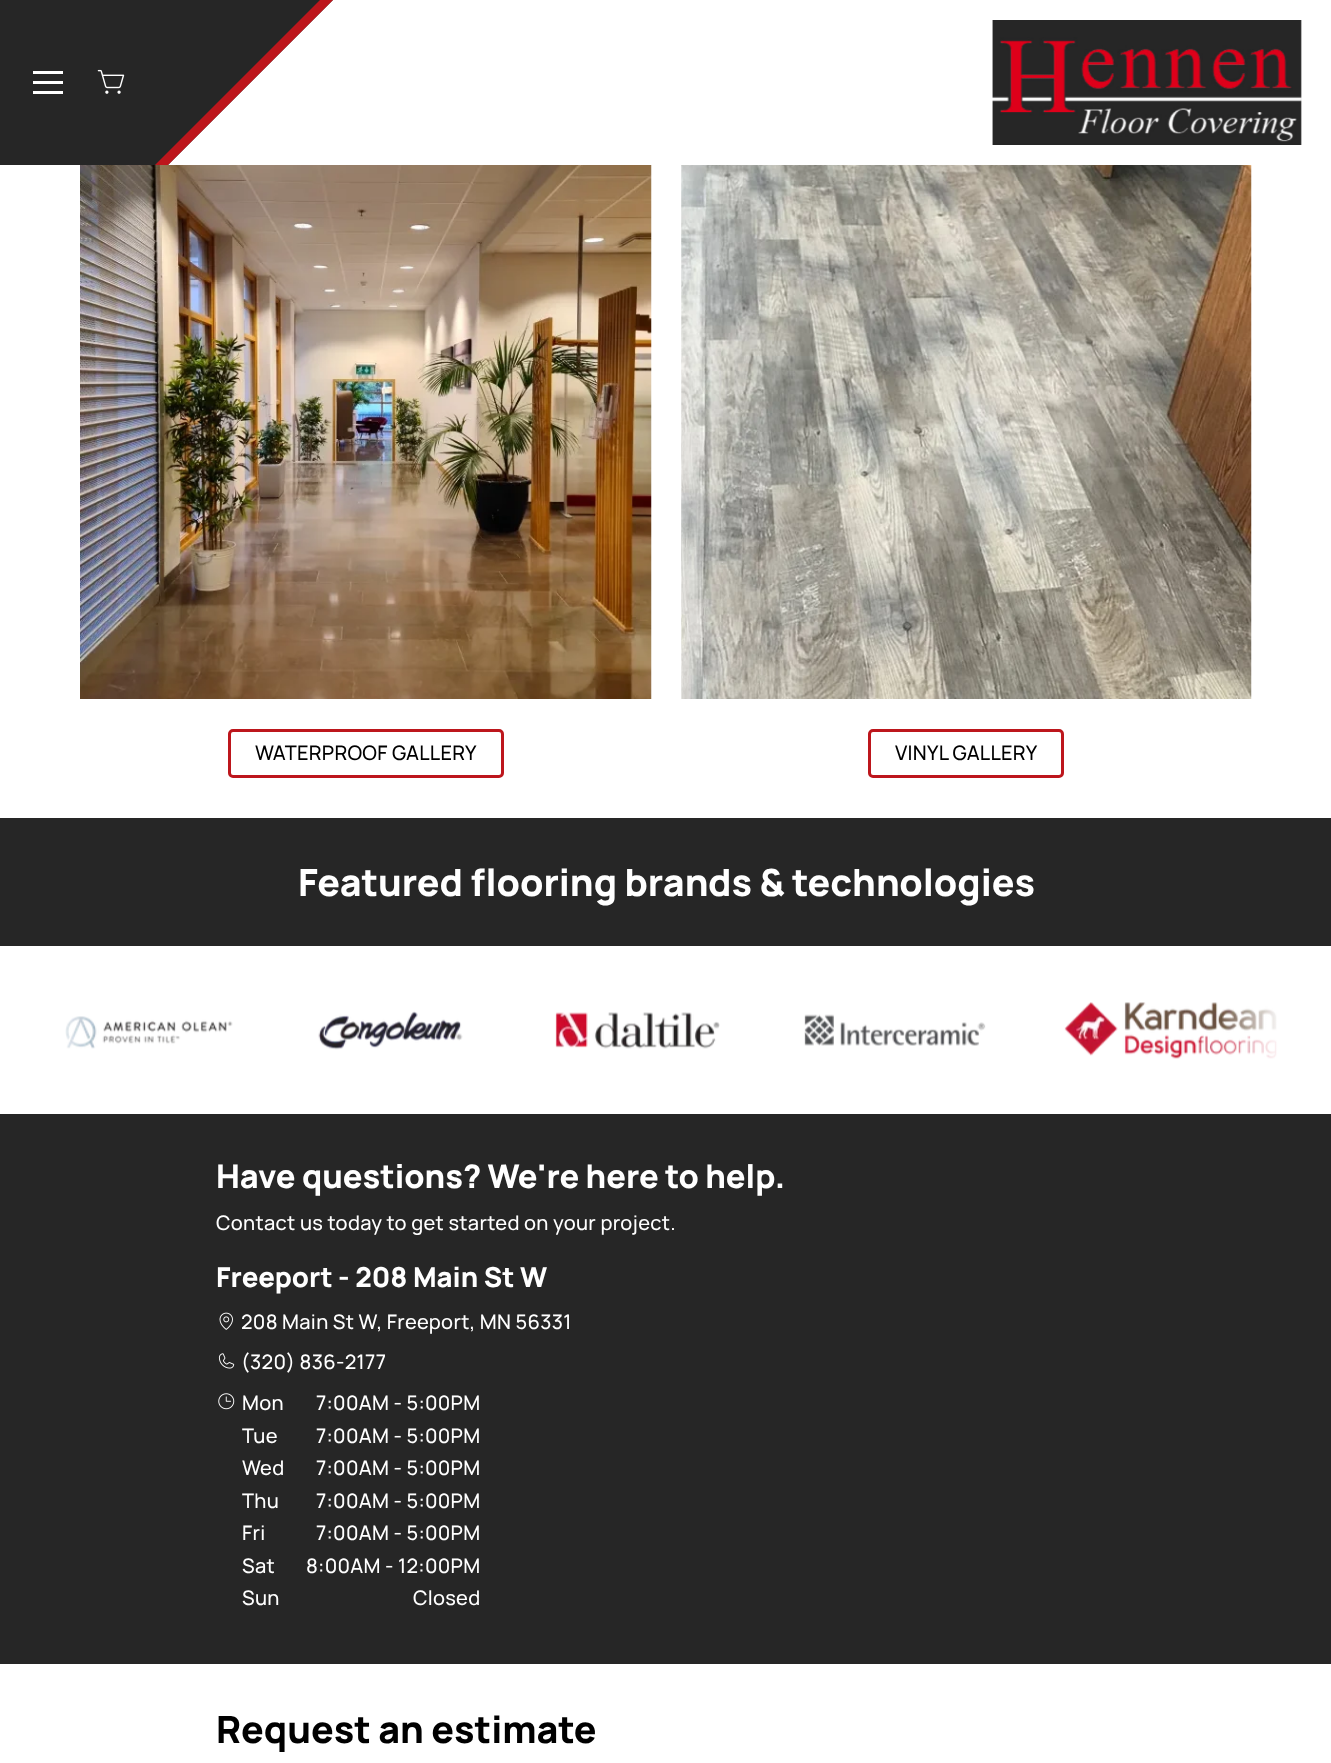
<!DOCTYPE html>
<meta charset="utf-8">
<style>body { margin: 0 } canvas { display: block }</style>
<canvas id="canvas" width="1331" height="1763"></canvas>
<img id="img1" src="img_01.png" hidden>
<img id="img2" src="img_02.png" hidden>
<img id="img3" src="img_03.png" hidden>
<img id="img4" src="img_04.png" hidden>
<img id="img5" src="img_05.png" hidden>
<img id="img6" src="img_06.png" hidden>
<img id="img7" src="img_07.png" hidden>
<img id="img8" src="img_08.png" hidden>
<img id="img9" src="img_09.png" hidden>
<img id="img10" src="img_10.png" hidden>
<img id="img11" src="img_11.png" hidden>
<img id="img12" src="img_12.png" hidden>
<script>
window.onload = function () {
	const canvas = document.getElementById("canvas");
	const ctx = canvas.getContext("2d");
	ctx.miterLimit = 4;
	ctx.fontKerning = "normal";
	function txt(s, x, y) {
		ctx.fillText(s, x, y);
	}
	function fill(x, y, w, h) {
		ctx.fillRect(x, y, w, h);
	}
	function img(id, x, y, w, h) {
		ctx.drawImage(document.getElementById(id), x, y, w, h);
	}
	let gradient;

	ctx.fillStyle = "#FFFFFF";
	fill(0, 0, 1331, 1763);
	ctx.fillStyle = "#262626";
	ctx.beginPath();
	ctx.moveTo(-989, 0);
	ctx.lineTo(333, 0);
	ctx.lineTo(168, 165);
	ctx.lineTo(-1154, 165);
	ctx.closePath();
	ctx.fill();
	ctx.fillStyle = "#BD161C";
	ctx.beginPath();
	ctx.moveTo(320, 0);
	ctx.lineTo(333, 0);
	ctx.lineTo(168, 165);
	ctx.lineTo(155, 165);
	ctx.closePath();
	ctx.fill();
	ctx.fillStyle = "#FFFFFF";
	fill(33, 81, 30, 3);
	fill(33, 71, 30, 3);
	fill(33, 91, 30, 3);
	img("img1", 97, 69, 28, 25);
	img("img2", 992, 20, 310, 125);
	img("img3", 80, 165, 572, 534);
	ctx.beginPath();
	ctx.roundRect(229.5, 730.5, 273, 46, 3.5);
	ctx.strokeStyle = "#BD161C";
	ctx.lineWidth = 3;
	ctx.stroke();
	img("img4", 681, 165, 571, 534);
	ctx.beginPath();
	ctx.roundRect(869.5, 730.5, 193, 46, 3.5);
	ctx.stroke();
	ctx.fillStyle = "#262626";
	fill(0, 818, 1331, 128);
	img("img5", 65, 1016, 168, 33);
	img("img6", 318, 1011, 145, 39);
	img("img7", 555, 1012, 165, 37);
	img("img8", 804, 1014, 182, 32);
	img("img9", 1064, 1002, 214, 57);
	gradient = ctx.createLinearGradient(50, 1030, 1281, 1030);
	gradient.addColorStop(0, "#FFFFFF");
	gradient.addColorStop(0.05, "rgba(255, 255, 255, 0)");
	gradient.addColorStop(0.95, "rgba(255, 255, 255, 0)");
	gradient.addColorStop(1, "#FFFFFF");
	ctx.fillStyle = gradient;
	fill(65, 1008, 1213, 51);
	ctx.fillStyle = "#262626";
	fill(0, 1114, 1331, 550);
	img("img10", 219, 1312, 14, 18);
	img("img11", 218, 1353, 17, 16);
	img("img12", 218, 1393, 17, 17);
	ctx.letterSpacing = "0.25px";
	ctx.font = "500 20px Manrope";
	ctx.fillStyle = "#000000";
	txt("WATERPROOF GALLERY", 255, 760);
	txt("VINYL GALLERY", 895, 760);
	ctx.letterSpacing = "-0.05px";
	ctx.font = "800 37.5px Manrope";
	ctx.fillStyle = "#FFFFFF";
	txt("Featured flooring brands & technologies", 298, 896);
	ctx.font = "800 32.5px Manrope";
	txt("Have questions? We're here to help.", 216, 1188);
	ctx.letterSpacing = "0.3px";
	ctx.font = "500 20px Manrope";
	txt("Contact us today to get started on your project.", 216, 1230);
	ctx.letterSpacing = "0px";
	ctx.font = "800 27.5px Manrope";
	txt("Freeport - 208 Main St W", 216, 1287);
	ctx.letterSpacing = "0.3px";
	ctx.font = "500 20px Manrope";
	txt("208 Main St W, Freeport, MN 56331", 241, 1329);
	txt("(320) 836-2177", 241, 1369);
	txt("Mon", 242, 1410);
	txt("7:00AM - 5:00PM", 316, 1410);
	txt("Tue", 242, 1443);
	txt("7:00AM - 5:00PM", 316, 1443);
	txt("Wed", 242, 1475);
	txt("7:00AM - 5:00PM", 316, 1475);
	txt("Thu", 242, 1508);
	txt("7:00AM - 5:00PM", 316, 1508);
	txt("Fri", 242, 1540);
	txt("7:00AM - 5:00PM", 316, 1540);
	txt("Sat", 242, 1573);
	txt("8:00AM - 12:00PM", 306, 1573);
	txt("Sun", 242, 1605);
	txt("Closed", 413, 1605);
	ctx.letterSpacing = "-0.05px";
	ctx.font = "800 37.5px Manrope";
	ctx.fillStyle = "#000000";
	txt("Request an estimate", 216, 1743);
};
</script>
